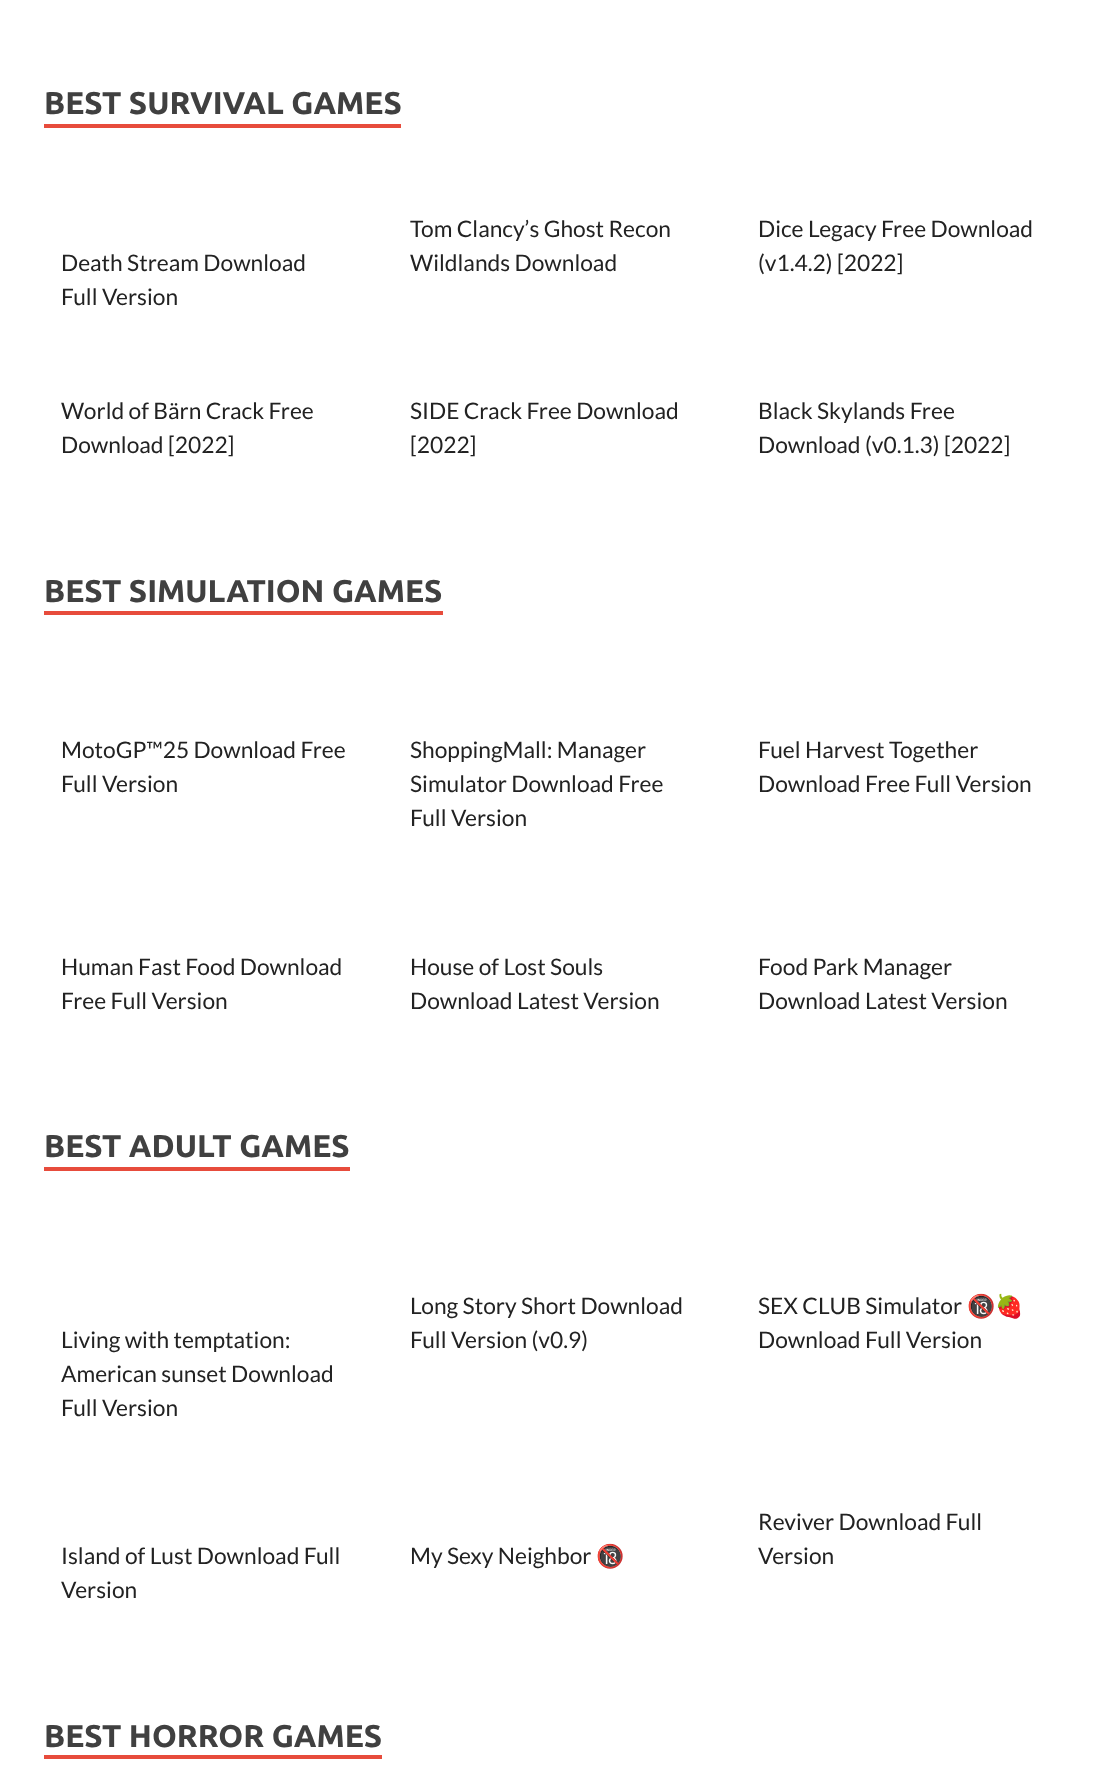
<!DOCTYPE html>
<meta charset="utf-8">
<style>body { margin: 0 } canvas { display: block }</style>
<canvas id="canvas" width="1103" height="1792"></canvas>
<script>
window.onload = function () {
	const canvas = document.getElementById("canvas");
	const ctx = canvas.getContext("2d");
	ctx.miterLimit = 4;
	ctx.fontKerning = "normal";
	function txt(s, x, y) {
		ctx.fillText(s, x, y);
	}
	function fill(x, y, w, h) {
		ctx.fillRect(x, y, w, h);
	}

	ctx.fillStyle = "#FFFFFF";
	fill(0, 0, 1103, 1792);
	ctx.fillStyle = "#E74C3C";
	fill(44, 124, 357, 4);
	fill(44, 611, 399, 4);
	fill(44, 1167, 306, 4);
	fill(44, 1755, 338, 4);
	ctx.font = "bold 31.5px Ubuntu";
	ctx.fillStyle = "#404040";
	txt("BEST SURVIVAL GAMES", 44, 114);
	ctx.font = "22.75px Lato";
	ctx.fillStyle = "#222222";
	txt("Death Stream Download", 61, 271);
	txt("Full Version", 61, 305);
	txt("Tom Clancy’s Ghost Recon", 410, 237);
	txt("Wildlands Download", 410, 271);
	txt("Dice Legacy Free Download", 758, 237);
	txt("(v1.4.2) [2022]", 758, 271);
	txt("World of Bärn Crack Free", 61, 419);
	txt("Download [2022]", 61, 453);
	txt("SIDE Crack Free Download", 410, 419);
	txt("[2022]", 410, 453);
	txt("Black Skylands Free", 758, 419);
	txt("Download (v0.1.3) [2022]", 758, 453);
	ctx.font = "bold 31.5px Ubuntu";
	ctx.fillStyle = "#404040";
	txt("BEST SIMULATION GAMES", 44, 602);
	ctx.font = "22.75px Lato";
	ctx.fillStyle = "#222222";
	txt("MotoGP™25 Download Free", 61, 758);
	txt("Full Version", 61, 792);
	txt("ShoppingMall: Manager", 410, 758);
	txt("Simulator Download Free", 410, 792);
	txt("Full Version", 410, 826);
	txt("Fuel Harvest Together", 758, 758);
	txt("Download Free Full Version", 758, 792);
	txt("Human Fast Food Download", 61, 975);
	txt("Free Full Version", 61, 1009);
	txt("House of Lost Souls", 410, 975);
	txt("Download Latest Version", 410, 1009);
	txt("Food Park Manager", 758, 975);
	txt("Download Latest Version", 758, 1009);
	ctx.font = "bold 31.5px Ubuntu";
	ctx.fillStyle = "#404040";
	txt("BEST ADULT GAMES", 44, 1157);
	ctx.font = "22.75px Lato";
	ctx.fillStyle = "#222222";
	txt("Long Story Short Download", 410, 1314);
	txt("Full Version (v0.9)", 410, 1348);
	txt("SEX CLUB Simulator", 758, 1314);
	ctx.font = "22.75px Noto Color Emoji";
	txt("🔞🍓", 967, 1314);
	ctx.font = "22.75px Lato";
	txt("Download Full Version", 758, 1348);
	txt("Living with temptation:", 61, 1348);
	txt("American sunset Download", 61, 1382);
	txt("Full Version", 61, 1416);
	txt("Island of Lust Download Full", 61, 1564);
	txt("Version", 61, 1598);
	txt("My Sexy Neighbor", 410, 1564);
	ctx.font = "22.75px Noto Color Emoji";
	txt("🔞", 596, 1564);
	ctx.font = "22.75px Lato";
	txt("Reviver Download Full", 758, 1530);
	txt("Version", 758, 1564);
	ctx.font = "bold 31.5px Ubuntu";
	ctx.fillStyle = "#404040";
	txt("BEST HORROR GAMES", 44, 1747);
};
</script>
